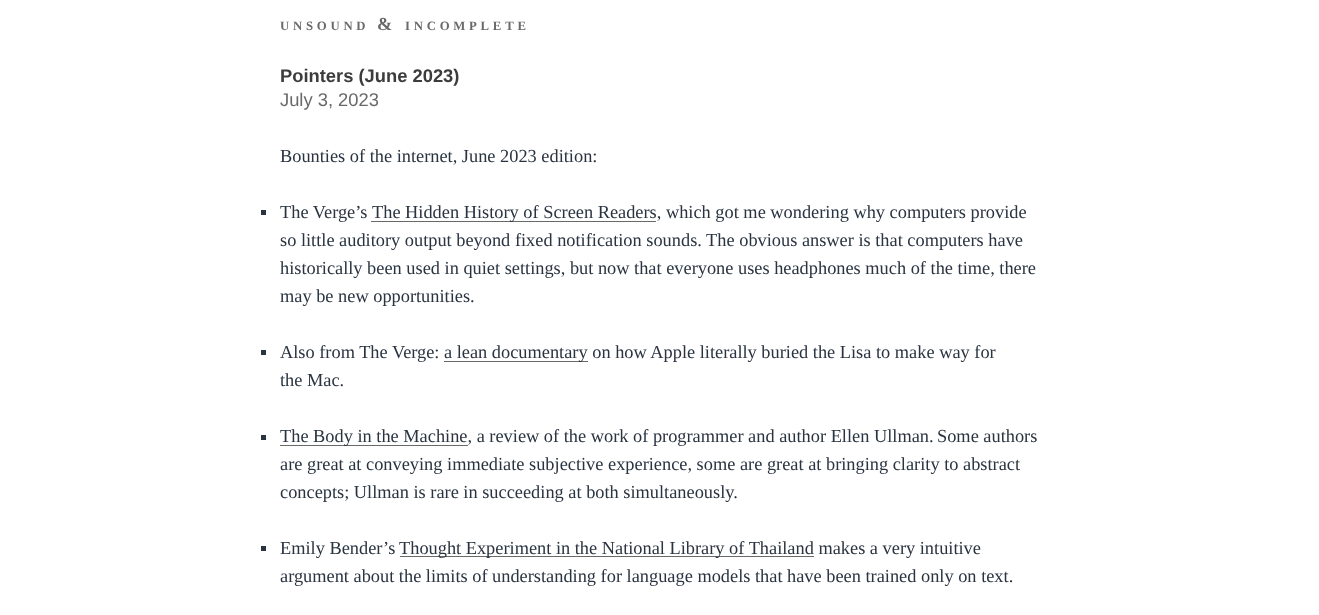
<!DOCTYPE html>
<meta charset="utf-8">
<style>body { margin: 0 } canvas { display: block }</style>
<canvas id="canvas" width="1319" height="615"></canvas>
<script>
window.onload = function () {
	const canvas = document.getElementById("canvas");
	const ctx = canvas.getContext("2d");
	ctx.miterLimit = 4;
	ctx.fontKerning = "normal";
	function txt(s, x, y) {
		ctx.fillText(s, x, y);
	}
	function fill(x, y, w, h) {
		ctx.fillRect(x, y, w, h);
	}

	ctx.fillStyle = "#FFFFFF";
	fill(0, 0, 1319, 615);
	ctx.fillStyle = "#2A3441";
	fill(261, 210, 5, 5);
	ctx.fillStyle = "#696969";
	fill(371, 221, 285, 1);
	ctx.fillStyle = "#2A3441";
	fill(261, 350, 5, 5);
	ctx.fillStyle = "#696969";
	fill(444, 361, 144, 1);
	ctx.fillStyle = "#2A3441";
	fill(261, 435, 5, 5);
	ctx.fillStyle = "#696969";
	fill(280, 445, 188, 1);
	ctx.fillStyle = "#2A3441";
	fill(261, 546, 5, 5);
	ctx.fillStyle = "#696969";
	fill(400, 556, 414, 1);
	ctx.letterSpacing = "3.75px";
	ctx.font = "bold 12.75px Liberation Serif";
	txt("UNSOUND", 280, 30);
	ctx.font = "bold 18.35px Liberation Serif";
	txt("&", 377, 30);
	ctx.font = "bold 12.75px Liberation Serif";
	txt("INCOMPLETE", 405, 30);
	ctx.letterSpacing = "0px";
	ctx.font = "bold 18.35px Liberation Sans";
	ctx.fillStyle = "#3C3C3C";
	txt("Pointers (June 2023)", 280, 82);
	ctx.font = "18.35px Liberation Sans";
	ctx.fillStyle = "#696969";
	txt("July 3, 2023", 280, 106);
	ctx.font = "18.35px Liberation Serif";
	ctx.fillStyle = "#2A3441";
	txt("Bounties of the internet, June 2023 edition:", 280, 162);
	txt("The Verge’s", 280, 218);
	txt("The Hidden History of Screen Readers, which got me wondering why computers provide", 372, 218);
	txt("so little auditory output beyond fixed notification sounds. The obvious answer is that computers have", 280, 246);
	txt("historically been used in quiet settings, but now that everyone uses headphones much of the time, there", 280, 274);
	txt("may be new opportunities.", 280, 302);
	txt("Also from The Verge:", 280, 358);
	txt("a lean documentary on how Apple literally buried the Lisa to make way for", 444, 358);
	txt("the Mac.", 280, 386);
	txt("The Body in the Machine, a review of the work of programmer and author Ellen Ullman.", 280, 442);
	txt("Some authors", 937, 442);
	txt("are great at conveying immediate subjective experience, some are great at bringing clarity to abstract", 280, 470);
	txt("concepts; Ullman is rare in succeeding at both simultaneously.", 280, 498);
	txt("Emily Bender’s", 280, 554);
	txt("Thought Experiment in the National Library of Thailand makes a very intuitive", 399, 554);
	txt("argument about the limits of understanding for language models that have been trained only on text.", 280, 582);
};
</script>
